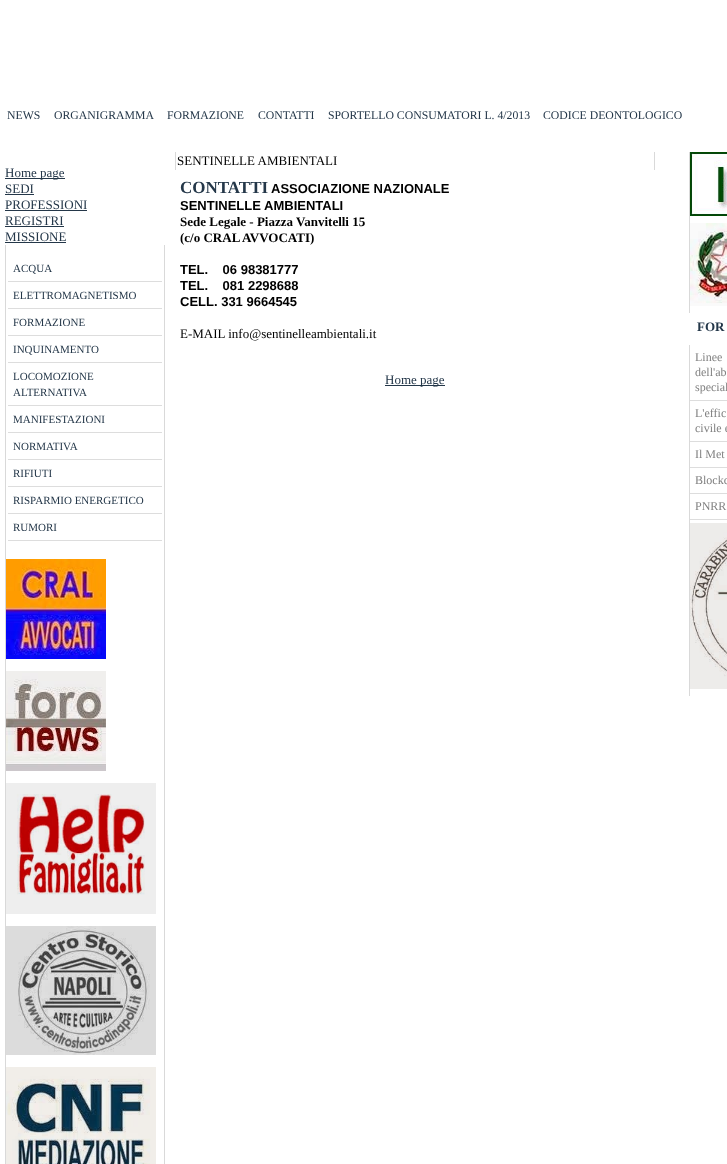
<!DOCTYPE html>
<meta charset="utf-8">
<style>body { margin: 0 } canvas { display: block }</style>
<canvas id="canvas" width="727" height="1164"></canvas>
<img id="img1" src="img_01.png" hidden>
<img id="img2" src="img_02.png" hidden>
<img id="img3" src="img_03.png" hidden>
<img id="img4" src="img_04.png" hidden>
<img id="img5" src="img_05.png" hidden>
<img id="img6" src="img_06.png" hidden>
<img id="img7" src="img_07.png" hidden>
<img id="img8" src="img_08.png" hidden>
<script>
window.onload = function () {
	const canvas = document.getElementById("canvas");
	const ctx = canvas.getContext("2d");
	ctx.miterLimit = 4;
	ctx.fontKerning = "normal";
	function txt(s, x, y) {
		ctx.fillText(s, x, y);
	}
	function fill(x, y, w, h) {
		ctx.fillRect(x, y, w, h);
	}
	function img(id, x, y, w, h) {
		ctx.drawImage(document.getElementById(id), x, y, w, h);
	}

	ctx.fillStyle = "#FFFFFF";
	fill(0, 0, 727, 1164);
	ctx.fillStyle = "#243749";
	fill(5, 178, 60, 1);
	fill(5, 194, 29, 1);
	fill(5, 210, 82, 1);
	fill(5, 226, 59, 1);
	fill(5, 242, 61, 1);
	ctx.fillStyle = "#D9D9D9";
	fill(164, 245, 1, 919);
	fill(5, 245, 1, 919);
	ctx.fillStyle = "#DDDDDD";
	fill(8, 281, 154, 1);
	fill(8, 308, 154, 1);
	fill(8, 335, 154, 1);
	fill(8, 362, 154, 1);
	fill(8, 405, 154, 1);
	fill(8, 432, 154, 1);
	fill(8, 459, 154, 1);
	fill(8, 486, 154, 1);
	fill(8, 513, 154, 1);
	fill(8, 540, 154, 1);
	img("img1", 6, 559, 100, 100);
	img("img2", 6, 671, 100, 100);
	img("img3", 6, 783, 150, 131);
	img("img4", 6, 926, 150, 129);
	img("img5", 6, 1067, 150, 97);
	ctx.fillStyle = "#D9D9D9";
	fill(654, 152, 1, 18);
	fill(175, 152, 1, 18);
	ctx.fillStyle = "#243749";
	fill(385, 385, 60, 1);
	ctx.fillStyle = "#D9D9D9";
	fill(689, 152, 1, 161);
	img("img6", 690, 152, 37, 64);
	img("img7", 690, 223, 37, 83);
	fill(689, 345, 1, 351);
	ctx.fillStyle = "#DDDDDD";
	fill(690, 400, 37, 1);
	fill(690, 441, 37, 1);
	fill(690, 467, 37, 1);
	fill(690, 493, 37, 1);
	fill(690, 519, 37, 1);
	img("img8", 690, 523, 37, 166);
	ctx.font = "11.75px Liberation Serif";
	ctx.fillStyle = "#243749";
	txt("NEWS", 7, 119);
	txt("ORGANIGRAMMA", 54, 119);
	txt("FORMAZIONE", 167, 119);
	txt("CONTATTI", 258, 119);
	txt("SPORTELLO CONSUMATORI L. 4/2013", 328, 119);
	txt("CODICE DEONTOLOGICO", 543, 119);
	ctx.font = "13px Liberation Serif";
	txt("Home page", 5, 177);
	txt("SEDI", 5, 193);
	txt("PROFESSIONI", 5, 209);
	txt("REGISTRI", 5, 225);
	txt("MISSIONE", 5, 241);
	ctx.font = "11px Liberation Serif";
	txt("ACQUA", 13, 272);
	txt("ELETTROMAGNETISMO", 13, 299);
	txt("FORMAZIONE", 13, 326);
	txt("INQUINAMENTO", 13, 353);
	txt("LOCOMOZIONE", 13, 380);
	txt("ALTERNATIVA", 13, 396);
	txt("MANIFESTAZIONI", 13, 423);
	txt("NORMATIVA", 13, 450);
	txt("RIFIUTI", 13, 477);
	txt("RISPARMIO ENERGETICO", 13, 504);
	txt("RUMORI", 13, 531);
	ctx.font = "13px Liberation Serif";
	ctx.fillStyle = "#000000";
	txt("SENTINELLE AMBIENTALI", 177, 165);
	ctx.font = "bold 17px Liberation Serif";
	ctx.fillStyle = "#243749";
	txt("CONTATTI", 180, 193);
	ctx.font = "bold 13px Liberation Sans";
	ctx.fillStyle = "#000000";
	txt("ASSOCIAZIONE NAZIONALE", 271, 193);
	txt("SENTINELLE AMBIENTALI", 180, 210);
	ctx.font = "bold 13px Liberation Serif";
	txt("Sede Legale - Piazza Vanvitelli 15", 180, 226);
	txt("(c/o CRAL AVVOCATI)", 180, 242);
	ctx.font = "bold 13px Liberation Sans";
	txt("TEL.    06 98381777", 180, 274);
	txt("TEL.    081 2298688", 180, 290);
	txt("CELL. 331 9664545", 180, 306);
	ctx.font = "13px Liberation Serif";
	txt("E-MAIL info@sentinelleambientali.it", 180, 338);
	ctx.fillStyle = "#243749";
	txt("Home page", 385, 384);
	ctx.font = "bold 13px Liberation Serif";
	txt("FOR", 697, 331);
	ctx.font = "12px Liberation Serif";
	ctx.fillStyle = "#808080";
	txt("Linee", 695, 361);
	txt("dell'ab", 695, 376);
	txt("special", 695, 391);
	txt("L'effic", 695, 417);
	txt("civile e", 695, 432);
	txt("Il Met", 695, 458);
	txt("Blockc", 695, 484);
	txt("PNRR", 695, 510);
};
</script>
